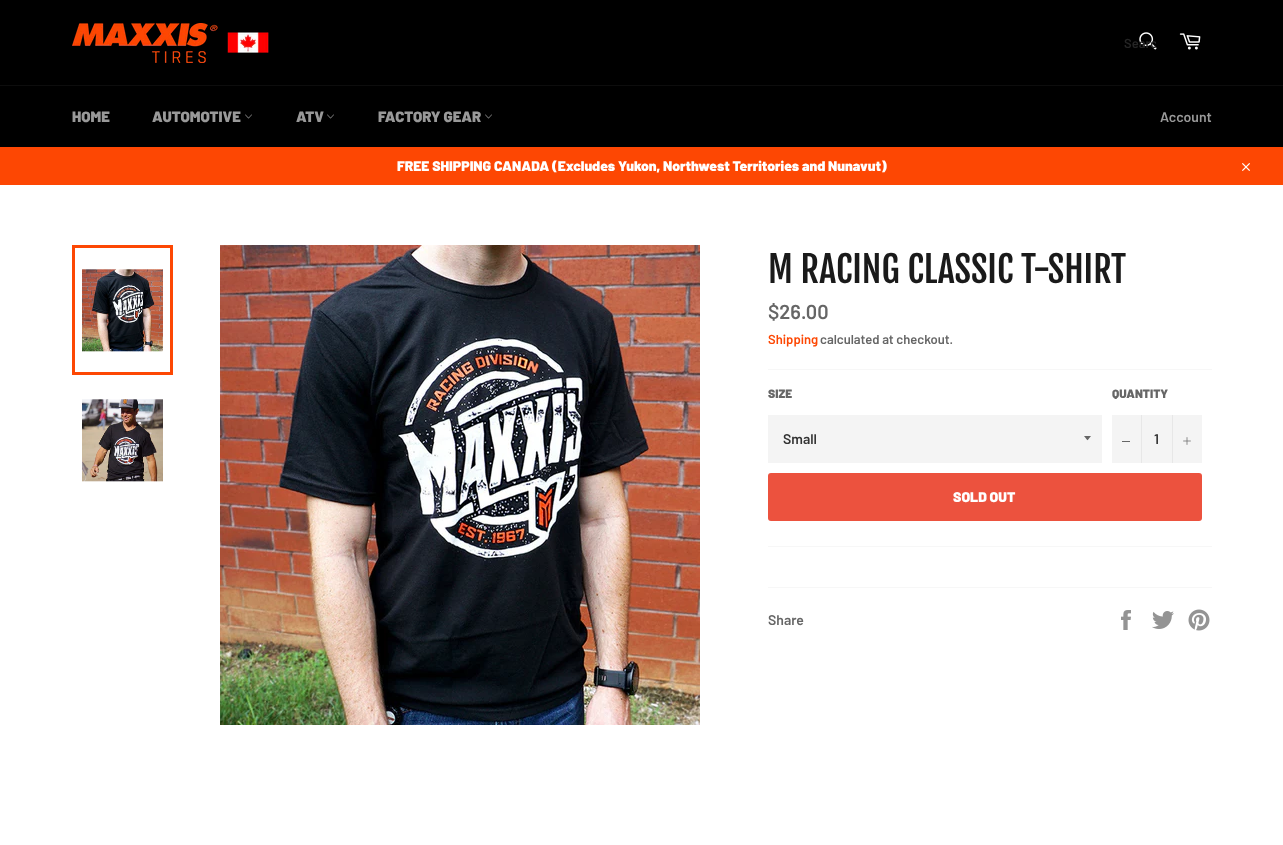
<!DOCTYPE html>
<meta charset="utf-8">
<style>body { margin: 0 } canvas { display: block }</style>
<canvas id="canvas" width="1283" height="845"></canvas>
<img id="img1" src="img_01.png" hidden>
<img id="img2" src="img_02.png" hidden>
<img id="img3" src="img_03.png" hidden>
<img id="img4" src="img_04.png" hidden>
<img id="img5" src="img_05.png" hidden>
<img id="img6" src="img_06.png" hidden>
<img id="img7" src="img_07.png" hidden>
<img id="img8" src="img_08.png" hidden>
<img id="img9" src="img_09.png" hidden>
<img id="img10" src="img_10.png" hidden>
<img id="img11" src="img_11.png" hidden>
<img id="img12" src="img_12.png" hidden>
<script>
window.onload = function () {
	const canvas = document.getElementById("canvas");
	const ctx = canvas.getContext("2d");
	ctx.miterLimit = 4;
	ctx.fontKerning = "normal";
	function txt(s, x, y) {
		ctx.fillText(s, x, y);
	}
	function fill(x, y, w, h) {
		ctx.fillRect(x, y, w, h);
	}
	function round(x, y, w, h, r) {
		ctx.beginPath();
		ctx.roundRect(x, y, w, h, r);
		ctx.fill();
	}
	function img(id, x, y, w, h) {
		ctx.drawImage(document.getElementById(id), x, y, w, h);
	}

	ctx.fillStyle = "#000000";
	fill(0, 0, 1283, 845);
	img("img1", 72, 23, 197, 40);
	img("img2", 1139, 32, 18, 18);
	img("img3", 1179, 33, 22, 17);
	ctx.fillStyle = "#0D0D0D";
	fill(0, 85, 1283, 1);
	img("img4", 245, 114, 7, 5);
	img("img4", 327, 114, 7, 5);
	img("img4", 485, 114, 7, 5);
	ctx.fillStyle = "#FD4703";
	fill(0, 147, 1283, 38);
	img("img5", 1242, 163, 8, 8);
	ctx.fillStyle = "#FFFFFF";
	fill(0, 185, 1283, 660);
	img("img6", 82, 269, 81, 83);
	ctx.strokeStyle = "#FD4703";
	ctx.lineWidth = 3;
	ctx.strokeRect(73.5, 246.5, 98, 127);
	img("img7", 82, 399, 81, 83);
	img("img8", 220, 245, 480, 480);
	ctx.fillStyle = "#F7F7F7";
	fill(768, 369, 444, 1);
	ctx.fillStyle = "#F4F4F4";
	fill(768, 415, 334, 48);
	ctx.fillStyle = "#666666";
	ctx.beginPath();
	ctx.moveTo(1084, 436);
	ctx.bezierCurveTo(1088.5, 441.5, 1086.5, 441.5, 1091, 436);
	ctx.closePath();
	ctx.fill();
	ctx.fillStyle = "#F4F4F4";
	fill(1112, 415, 90, 48);
	ctx.fillStyle = "#E7E7E7";
	fill(1141, 415, 1, 48);
	ctx.fillStyle = "#666666";
	fill(1122, 441, 8, 1);
	ctx.fillStyle = "#E7E7E7";
	fill(1172, 415, 1, 48);
	img("img9", 1183, 437, 8, 8);
	ctx.fillStyle = "#EC523E";
	round(768, 473, 434, 48, 3);
	ctx.fillStyle = "#F7F7F7";
	fill(768, 546, 444, 1);
	fill(768, 587, 444, 1);
	img("img10", 1121, 610, 10, 20);
	img("img11", 1152, 611, 22, 18);
	img("img12", 1188, 609, 22, 22);
	ctx.save();
	ctx.beginPath();
	ctx.rect(1124, 35, 32, 16);
	ctx.clip();
	ctx.font = "600 13px Barlow";
	ctx.fillStyle = "#252525";
	txt("Searc", 1124, 48);
	ctx.restore();
	ctx.font = "900 15px Barlow";
	ctx.fillStyle = "#999999";
	txt("HOME", 72, 122);
	txt("AUTOMOTIVE", 152, 122);
	txt("ATV", 296, 122);
	txt("FACTORY GEAR", 378, 122);
	ctx.font = "600 14px Barlow";
	txt("Account", 1160, 122);
	ctx.font = "900 14px Barlow";
	ctx.fillStyle = "#FFFFFF";
	txt("FREE SHIPPING CANADA (Excludes Yukon, Northwest Territories and Nunavut)", 397, 171);
	ctx.font = "36px Fjalla One";
	ctx.fillStyle = "#1A1A1A";
	txt("M RACING CLASSIC T-SHIRT", 768, 283);
	ctx.font = "600 20px Barlow";
	ctx.fillStyle = "#666666";
	txt("$26.00", 768, 319);
	ctx.font = "600 13px Barlow";
	ctx.fillStyle = "#FD4703";
	txt("Shipping", 768, 344);
	ctx.fillStyle = "#666666";
	txt("calculated at checkout.", 820, 344);
	ctx.font = "900 12px Barlow";
	txt("SIZE", 768, 398);
	ctx.font = "600 14px Barlow";
	ctx.fillStyle = "#333333";
	txt("Small", 783, 444);
	ctx.font = "900 12px Barlow";
	ctx.fillStyle = "#666666";
	txt("QUANTITY", 1112, 398);
	ctx.font = "600 14px Barlow";
	ctx.fillStyle = "#333333";
	txt("1", 1154, 444);
	ctx.font = "900 14px Barlow";
	ctx.fillStyle = "#FFFFFF";
	txt("SOLD OUT", 953, 502);
	ctx.font = "600 14px Barlow";
	ctx.fillStyle = "#666666";
	txt("Share", 768, 625);
};
</script>
